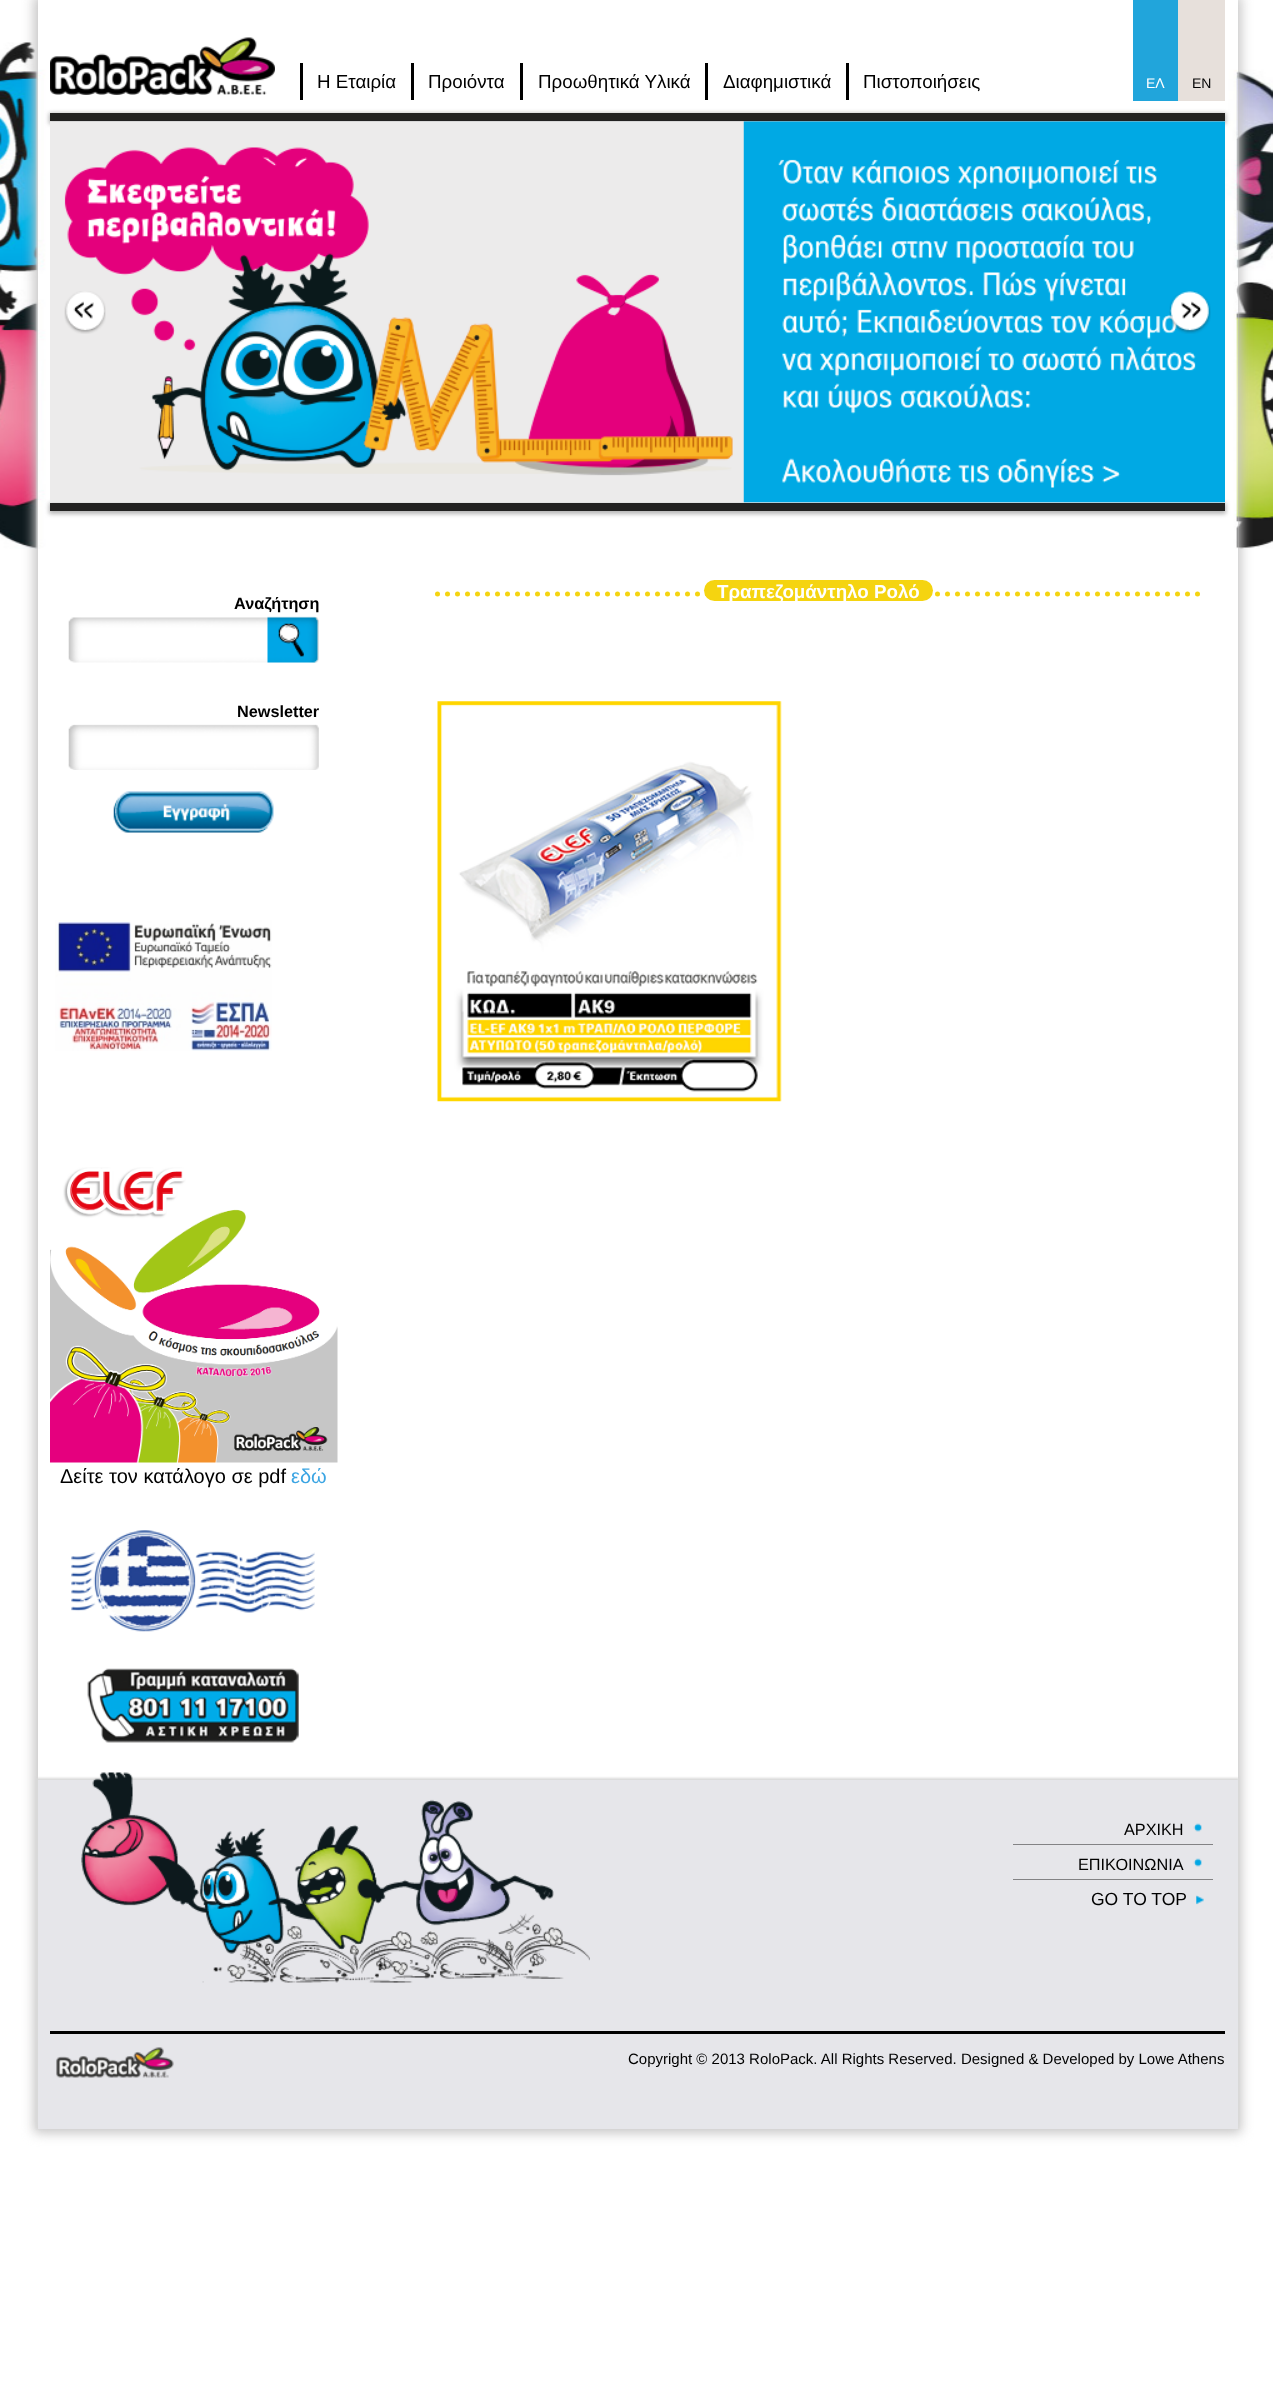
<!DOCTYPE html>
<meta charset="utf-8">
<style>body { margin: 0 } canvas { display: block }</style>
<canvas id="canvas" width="1273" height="2398"></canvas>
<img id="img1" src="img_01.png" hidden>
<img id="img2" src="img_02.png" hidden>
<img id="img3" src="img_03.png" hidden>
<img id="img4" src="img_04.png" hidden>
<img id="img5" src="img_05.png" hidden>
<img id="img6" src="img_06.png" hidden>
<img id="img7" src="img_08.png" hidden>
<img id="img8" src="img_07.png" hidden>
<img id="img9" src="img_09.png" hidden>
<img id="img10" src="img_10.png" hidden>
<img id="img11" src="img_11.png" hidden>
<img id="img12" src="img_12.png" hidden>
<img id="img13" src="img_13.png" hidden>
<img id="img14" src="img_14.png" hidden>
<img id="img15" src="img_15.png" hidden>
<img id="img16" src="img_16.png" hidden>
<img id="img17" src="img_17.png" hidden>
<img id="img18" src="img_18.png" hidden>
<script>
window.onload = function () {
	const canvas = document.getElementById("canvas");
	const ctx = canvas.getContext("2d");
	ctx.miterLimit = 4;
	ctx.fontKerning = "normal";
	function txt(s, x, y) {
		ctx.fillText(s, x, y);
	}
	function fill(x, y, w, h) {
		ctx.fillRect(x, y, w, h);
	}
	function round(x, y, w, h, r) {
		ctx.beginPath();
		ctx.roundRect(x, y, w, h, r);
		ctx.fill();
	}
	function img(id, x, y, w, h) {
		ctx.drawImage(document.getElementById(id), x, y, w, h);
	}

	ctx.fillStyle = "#FFFFFF";
	fill(0, 0, 1273, 2398);
	img("img1", 0, 42, 1273, 507);
	ctx.save();
	ctx.beginPath();
	ctx.moveTo(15, 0);
	ctx.lineTo(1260, 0);
	ctx.lineTo(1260, 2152);
	ctx.lineTo(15, 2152);
	ctx.closePath();
	ctx.moveTo(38, 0);
	ctx.lineTo(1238, 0);
	ctx.lineTo(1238, 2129);
	ctx.lineTo(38, 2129);
	ctx.closePath();
	ctx.clip("evenodd");
	ctx.fillStyle = "#C5C4C4";
	ctx.filter = "blur(6px)";
	ctx.beginPath();
	ctx.rect(34, -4, 1207, 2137);
	ctx.fill();
	ctx.filter = "none";
	ctx.restore();
	img("img2", 50, 37, 225, 58);
	ctx.fillStyle = "#000000";
	fill(300, 63, 3, 37);
	fill(411, 63, 3, 37);
	fill(520, 63, 3, 37);
	fill(705, 63, 3, 37);
	fill(846, 63, 3, 37);
	ctx.fillStyle = "#21A5DB";
	fill(1133, 0, 45, 101);
	ctx.fillStyle = "#E7E0DB";
	fill(1178, 0, 47, 101);
	ctx.fillStyle = "#B6B6B6";
	ctx.filter = "blur(2px)";
	ctx.beginPath();
	ctx.rect(49, 113, 1177, 11);
	ctx.fill();
	ctx.filter = "none";
	ctx.fillStyle = "#222221";
	fill(50, 113, 1175, 8);
	ctx.fillStyle = "#B6B6B6";
	ctx.filter = "blur(2px)";
	ctx.beginPath();
	ctx.rect(49, 503, 1177, 11);
	ctx.fill();
	ctx.filter = "none";
	img("img3", 50, 121, 1175, 382);
	img("img4", 64, 291, 42, 43);
	img("img5", 1169, 291, 42, 43);
	ctx.fillStyle = "#222221";
	fill(50, 503, 1175, 8);
	ctx.beginPath();
	ctx.moveTo(437.5, 594);
	ctx.lineTo(1200, 594);
	ctx.strokeStyle = "#F5D410";
	ctx.lineWidth = 5;
	ctx.lineCap = "round";
	ctx.setLineDash([0, 10]);
	ctx.stroke();
	ctx.fillStyle = "#F5D410";
	round(704, 580, 229, 21, 10.5);
	img("img6", 437, 701, 345, 401);
	img("img7", 68, 617, 251, 46);
	img("img8", 267, 616, 52, 47);
	img("img9", 68, 724, 251, 46);
	img("img10", 113, 791, 161, 42);
	img("img11", 55, 920, 217, 131);
	img("img12", 50, 1167, 288, 296);
	img("img13", 71, 1530, 244, 102);
	img("img14", 87, 1668, 212, 75);
	ctx.fillStyle = "#D9D9D9";
	ctx.filter = "blur(1px)";
	ctx.beginPath();
	ctx.rect(36, 1778, 1203, 351);
	ctx.fill();
	ctx.filter = "none";
	ctx.fillStyle = "#E6E6EA";
	fill(38, 1780, 1200, 349);
	img("img15", 81, 1772, 509, 211);
	ctx.fillStyle = "#000000";
	fill(50, 2031, 1175, 3);
	ctx.fillStyle = "#838385";
	fill(1013, 1844, 200, 1);
	img("img16", 1193, 1823, 9, 9);
	fill(1013, 1879, 200, 1);
	img("img16", 1193, 1858, 9, 9);
	img("img17", 1196, 1895, 8, 10);
	img("img18", 56, 2047, 118, 31);
	ctx.font = "18.75px Liberation Sans";
	ctx.fillStyle = "#000000";
	txt("Η Εταιρία", 317, 88);
	txt("Προιόντα", 428, 88);
	txt("Προωθητικά Υλικά", 538, 88);
	txt("Διαφημιστικά", 723, 88);
	txt("Πιστοποιήσεις", 863, 88);
	ctx.font = "14px Liberation Sans";
	ctx.fillStyle = "#FFFFFF";
	txt("ΕΛ", 1146, 88);
	ctx.fillStyle = "#000000";
	txt("EN", 1192, 88);
	ctx.font = "bold 18.75px Liberation Sans";
	ctx.fillStyle = "#FFFFFF";
	txt("Τραπεζομάντηλο Ρολό", 717, 598);
	ctx.font = "bold 16.25px Liberation Sans";
	ctx.fillStyle = "#000000";
	txt("Αναζήτηση", 234, 609);
	txt("Νewsletter", 237, 717);
	ctx.font = "20px Liberation Sans";
	txt("Δείτε τον κατάλογο σε pdf", 60, 1483);
	ctx.fillStyle = "#3BA5E3";
	txt("εδώ", 291, 1483);
	ctx.font = "16.25px Liberation Sans";
	ctx.fillStyle = "#000000";
	txt("ΑΡΧΙΚΗ", 1124, 1835);
	txt("ΕΠΙΚΟΙΝΩΝΙΑ", 1078, 1870);
	ctx.font = "17.5px Liberation Sans";
	txt("GO TO TOP", 1091, 1905);
	ctx.font = "15px Liberation Sans";
	txt("Copyright © 2013 RoloPack. All Rights Reserved. Designed & Developed by Lowe Athens", 628, 2064);
};
</script>
